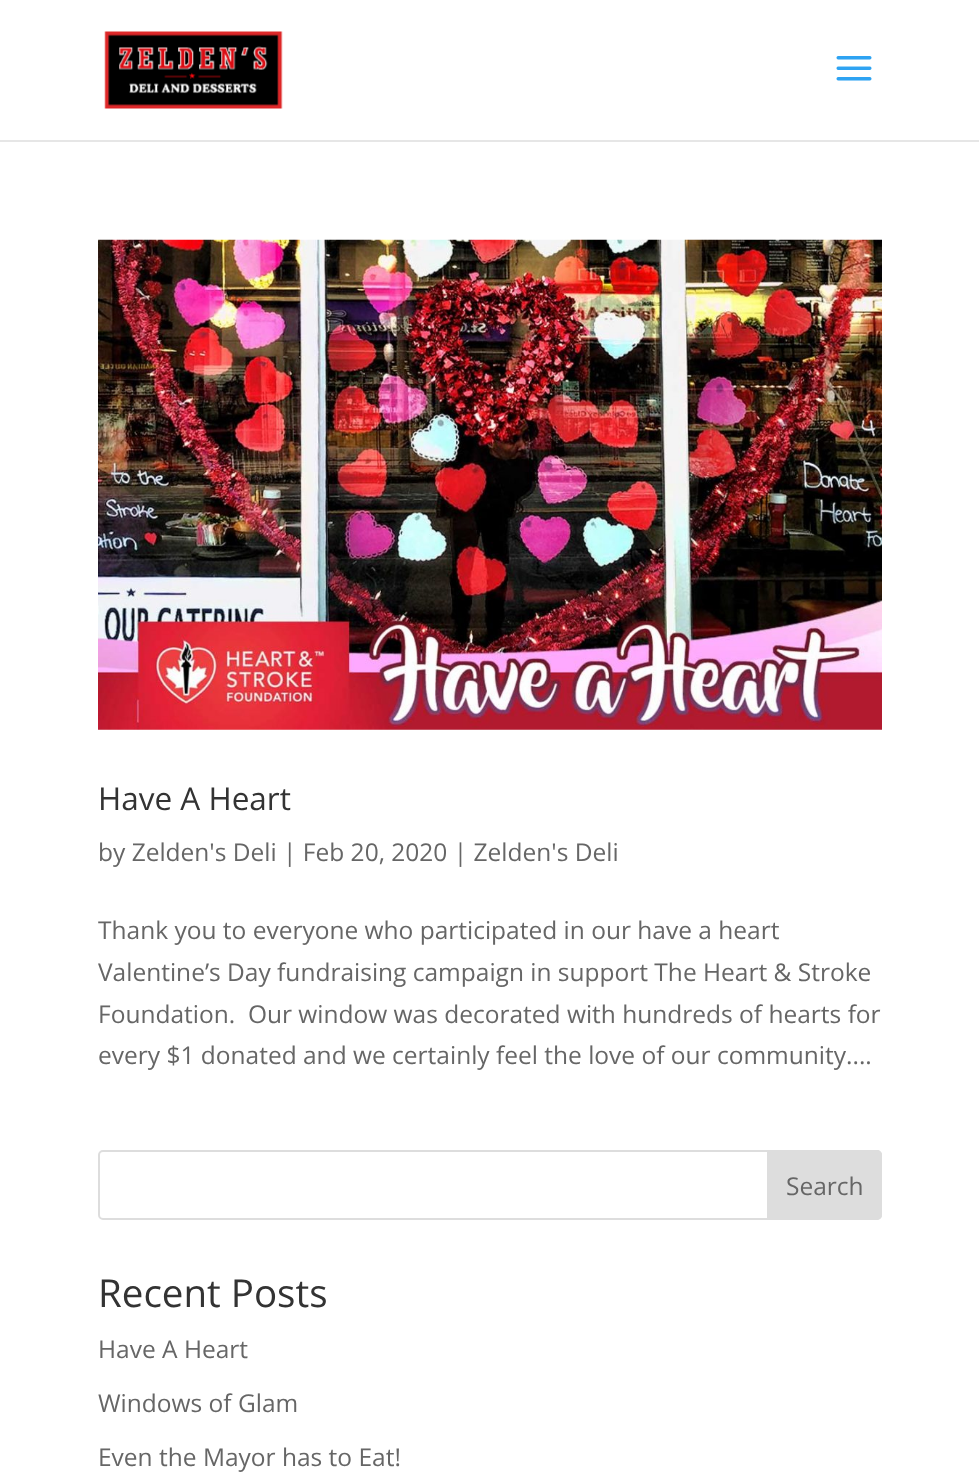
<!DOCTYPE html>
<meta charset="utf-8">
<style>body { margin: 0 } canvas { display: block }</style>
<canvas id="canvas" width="979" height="1479"></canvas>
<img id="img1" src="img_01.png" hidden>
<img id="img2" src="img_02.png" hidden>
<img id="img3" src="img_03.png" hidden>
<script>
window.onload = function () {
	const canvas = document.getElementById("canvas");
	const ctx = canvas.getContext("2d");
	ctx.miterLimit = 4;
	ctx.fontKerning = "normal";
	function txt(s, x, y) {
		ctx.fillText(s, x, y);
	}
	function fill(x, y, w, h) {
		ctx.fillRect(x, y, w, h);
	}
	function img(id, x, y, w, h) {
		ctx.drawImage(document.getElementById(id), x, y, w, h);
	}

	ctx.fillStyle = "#FFFFFF";
	fill(0, 0, 979, 1479);
	ctx.fillStyle = "#E6E6E6";
	fill(0, 140, 979, 2);
	img("img1", 104, 31, 179, 78);
	img("img2", 836, 56, 36, 25);
	img("img3", 98, 239, 784, 491);
	ctx.beginPath();
	ctx.roundRect(99, 1151, 782, 68, 4);
	ctx.strokeStyle = "#DDDDDD";
	ctx.lineWidth = 2;
	ctx.stroke();
	ctx.fillStyle = "#DDDDDD";
	ctx.beginPath();
	ctx.roundRect(768, 1151, 113, 68, [0, 4, 4, 0]);
	ctx.fill();
	ctx.stroke();
	ctx.font = "31.5px Open Sans";
	ctx.fillStyle = "#333333";
	txt("Have A Heart", 98, 810);
	ctx.font = "24.5px Open Sans";
	ctx.fillStyle = "#666666";
	txt("by Zelden's Deli | Feb 20, 2020 | Zelden's Deli", 98, 861);
	txt("Thank you to everyone who participated in our have a heart", 98, 939);
	txt("Valentine’s Day fundraising campaign in support The Heart & Stroke", 98, 981);
	txt("Foundation.  Our window was decorated with hundreds of hearts for", 98, 1023);
	txt("every $1 donated and we certainly feel the love of our community....", 98, 1064);
	txt("Search", 786, 1195);
	ctx.font = "38.5px Open Sans";
	ctx.fillStyle = "#333333";
	txt("Recent Posts", 98, 1307);
	ctx.font = "24.5px Open Sans";
	ctx.fillStyle = "#666666";
	txt("Have A Heart", 98, 1358);
	txt("Windows of Glam", 98, 1412);
	txt("Even the Mayor has to Eat!", 98, 1466);
};
</script>
